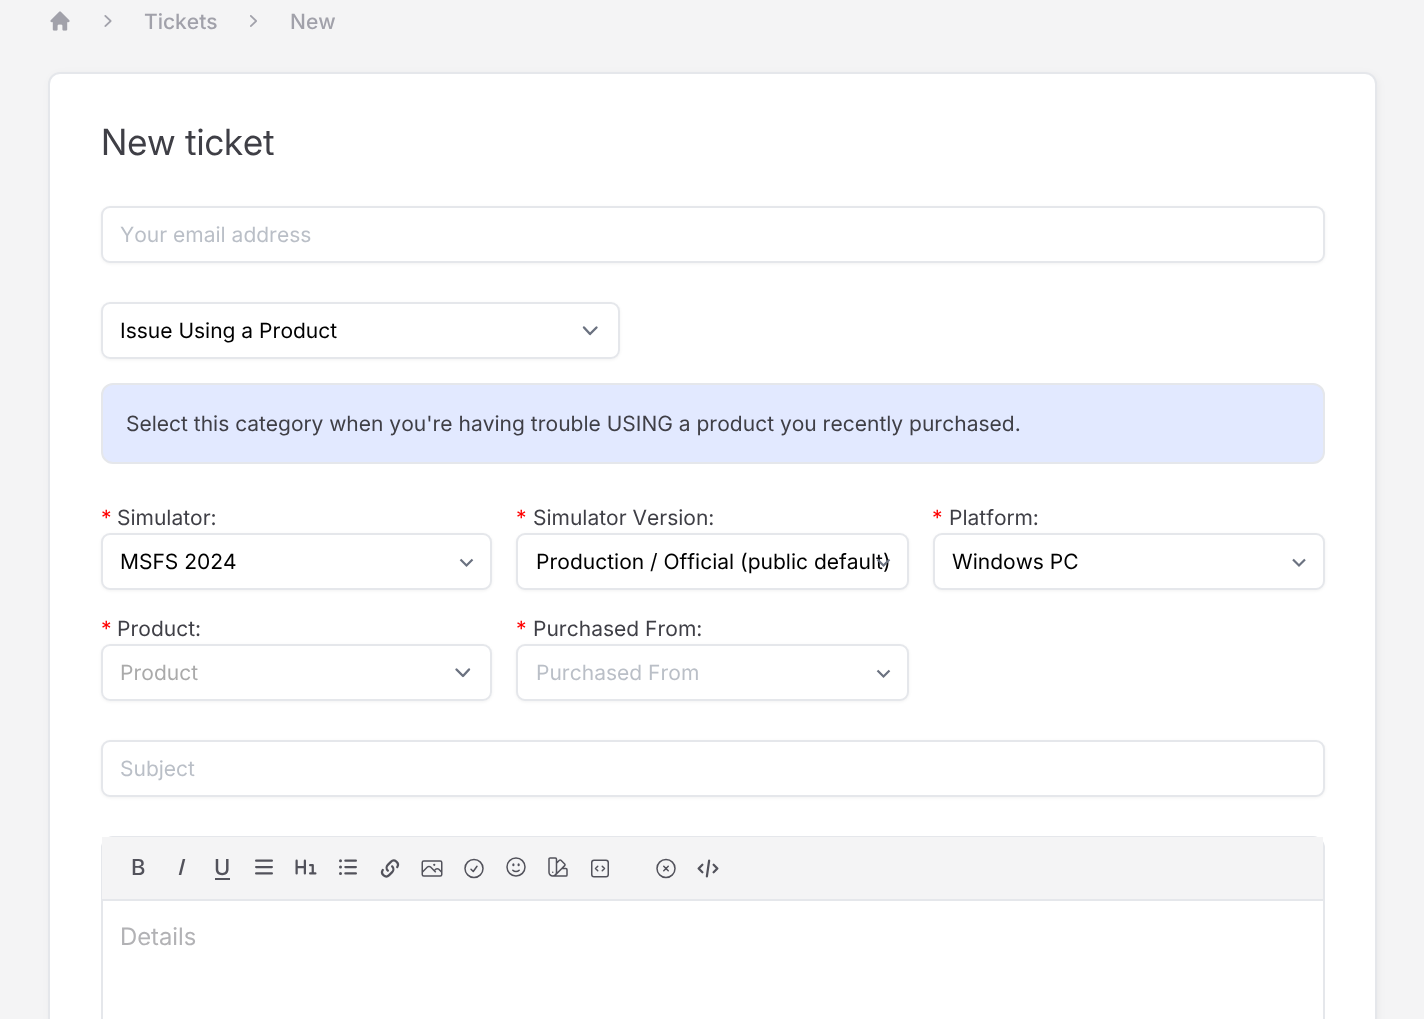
<!DOCTYPE html>
<meta charset="utf-8">
<style>body { margin: 0 } canvas { display: block }</style>
<canvas id="canvas" width="1424" height="1019"></canvas>
<img id="img1" src="img_01.png" hidden>
<img id="img2" src="img_02.png" hidden>
<img id="img3" src="img_03.png" hidden>
<img id="img4" src="img_04.png" hidden>
<img id="img5" src="img_05.png" hidden>
<img id="img6" src="img_06.png" hidden>
<img id="img7" src="img_07.png" hidden>
<img id="img8" src="img_08.png" hidden>
<img id="img9" src="img_09.png" hidden>
<img id="img10" src="img_10.png" hidden>
<img id="img11" src="img_11.png" hidden>
<img id="img12" src="img_12.png" hidden>
<img id="img13" src="img_13.png" hidden>
<img id="img14" src="img_14.png" hidden>
<script>
window.onload = function () {
	const canvas = document.getElementById("canvas");
	const ctx = canvas.getContext("2d");
	ctx.miterLimit = 4;
	ctx.fontKerning = "normal";
	function txt(s, x, y) {
		ctx.fillText(s, x, y);
	}
	function fill(x, y, w, h) {
		ctx.fillRect(x, y, w, h);
	}
	function round(x, y, w, h, r) {
		ctx.beginPath();
		ctx.roundRect(x, y, w, h, r);
		ctx.fill();
	}
	function img(id, x, y, w, h) {
		ctx.drawImage(document.getElementById(id), x, y, w, h);
	}

	ctx.fillStyle = "#F4F4F5";
	fill(0, 0, 1424, 1019);
	img("img1", 50, 11, 20, 20);
	img("img2", 104, 15, 8, 12);
	img("img3", 250, 15, 7, 12);
	ctx.fillStyle = "rgba(0, 0, 0, 0.06)";
	ctx.filter = "blur(4px)";
	ctx.beginPath();
	ctx.roundRect(51, 75, 1326, 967, 11);
	ctx.fill();
	ctx.filter = "none";
	ctx.fillStyle = "#FFFFFF";
	ctx.beginPath();
	ctx.roundRect(49, 73, 1327, 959, 11);
	ctx.fill();
	ctx.strokeStyle = "#E5E7EB";
	ctx.lineWidth = 2;
	ctx.stroke();
	ctx.fillStyle = "rgba(0, 0, 0, 0.05)";
	ctx.filter = "blur(1.5px)";
	ctx.beginPath();
	ctx.roundRect(101, 207, 1224, 57, 9);
	ctx.fill();
	ctx.filter = "none";
	ctx.fillStyle = "#FFFFFF";
	ctx.beginPath();
	ctx.roundRect(102, 207, 1222, 55, 8);
	ctx.fill();
	ctx.stroke();
	ctx.fillStyle = "rgba(0, 0, 0, 0.05)";
	ctx.filter = "blur(1.5px)";
	ctx.beginPath();
	ctx.roundRect(101, 303, 519, 57, 9);
	ctx.fill();
	ctx.filter = "none";
	ctx.fillStyle = "#FFFFFF";
	round(101, 302, 519, 57, 9);
	ctx.beginPath();
	ctx.moveTo(584, 327.5);
	ctx.lineTo(590, 334);
	ctx.lineTo(596.5, 327.5);
	ctx.strokeStyle = "#6B7280";
	ctx.lineWidth = 2.4;
	ctx.lineCap = "round";
	ctx.lineJoin = "round";
	ctx.stroke();
	ctx.beginPath();
	ctx.roundRect(102, 303, 517, 55, 8);
	ctx.strokeStyle = "#E5E7EB";
	ctx.lineWidth = 2;
	ctx.lineJoin = "miter";
	ctx.stroke();
	ctx.fillStyle = "rgba(62, 110, 254, 0.15)";
	ctx.beginPath();
	ctx.roundRect(102, 384, 1222, 79, 11);
	ctx.fill();
	ctx.stroke();
	ctx.fillStyle = "rgba(0, 0, 0, 0.05)";
	ctx.filter = "blur(1.5px)";
	ctx.beginPath();
	ctx.roundRect(101, 534, 391, 57, 9);
	ctx.fill();
	ctx.filter = "none";
	ctx.fillStyle = "#FFFFFF";
	ctx.beginPath();
	ctx.roundRect(102, 534, 389, 55, 8);
	ctx.fill();
	ctx.stroke();
	ctx.beginPath();
	ctx.moveTo(460.5, 559.5);
	ctx.lineTo(466.5, 565.5);
	ctx.lineTo(472.5, 559.5);
	ctx.strokeStyle = "#6B7280";
	ctx.lineWidth = 2.2;
	ctx.lineCap = "butt";
	ctx.stroke();
	ctx.fillStyle = "rgba(0, 0, 0, 0.05)";
	ctx.filter = "blur(1.5px)";
	ctx.beginPath();
	ctx.roundRect(516, 534, 393, 57, 9);
	ctx.fill();
	ctx.filter = "none";
	ctx.fillStyle = "#FFFFFF";
	ctx.beginPath();
	ctx.roundRect(517, 534, 391, 55, 8);
	ctx.fill();
	ctx.strokeStyle = "#E5E7EB";
	ctx.lineWidth = 2;
	ctx.stroke();
	ctx.fillStyle = "rgba(0, 0, 0, 0.05)";
	ctx.filter = "blur(1.5px)";
	ctx.beginPath();
	ctx.roundRect(933, 534, 392, 57, 9);
	ctx.fill();
	ctx.filter = "none";
	ctx.fillStyle = "#FFFFFF";
	ctx.beginPath();
	ctx.roundRect(934, 534, 390, 55, 8);
	ctx.fill();
	ctx.stroke();
	ctx.beginPath();
	ctx.moveTo(1293, 559.5);
	ctx.lineTo(1299, 565.5);
	ctx.lineTo(1305, 559.5);
	ctx.strokeStyle = "#6B7280";
	ctx.lineWidth = 2.2;
	ctx.stroke();
	ctx.fillStyle = "rgba(0, 0, 0, 0.05)";
	ctx.filter = "blur(1.5px)";
	ctx.beginPath();
	ctx.roundRect(101, 645, 391, 57, 9);
	ctx.fill();
	ctx.filter = "none";
	ctx.fillStyle = "#FFFFFF";
	round(101, 644, 391, 57, 9);
	ctx.beginPath();
	ctx.moveTo(456.5, 669.5);
	ctx.lineTo(463, 676);
	ctx.lineTo(469, 669.5);
	ctx.lineWidth = 2.4;
	ctx.lineCap = "round";
	ctx.lineJoin = "round";
	ctx.stroke();
	ctx.beginPath();
	ctx.roundRect(102, 645, 389, 55, 8);
	ctx.strokeStyle = "#E5E7EB";
	ctx.lineWidth = 2;
	ctx.lineJoin = "miter";
	ctx.stroke();
	ctx.fillStyle = "rgba(0, 0, 0, 0.05)";
	ctx.filter = "blur(1.5px)";
	ctx.beginPath();
	ctx.roundRect(516, 645, 393, 57, 9);
	ctx.fill();
	ctx.filter = "none";
	ctx.fillStyle = "#FFFFFF";
	ctx.beginPath();
	ctx.roundRect(517, 645, 391, 55, 8);
	ctx.fill();
	ctx.stroke();
	ctx.beginPath();
	ctx.moveTo(877.5, 670.5);
	ctx.lineTo(883.5, 676.5);
	ctx.lineTo(889.5, 670.5);
	ctx.strokeStyle = "#6B7280";
	ctx.lineWidth = 2.2;
	ctx.lineCap = "butt";
	ctx.stroke();
	ctx.fillStyle = "rgba(0, 0, 0, 0.05)";
	ctx.filter = "blur(1.5px)";
	ctx.beginPath();
	ctx.roundRect(101, 741, 1224, 57, 9);
	ctx.fill();
	ctx.filter = "none";
	ctx.fillStyle = "#FFFFFF";
	ctx.beginPath();
	ctx.roundRect(102, 741, 1222, 55, 8);
	ctx.fill();
	ctx.strokeStyle = "#E5E7EB";
	ctx.lineWidth = 2;
	ctx.stroke();
	ctx.beginPath();
	ctx.roundRect(102, 837, 1222, 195, 11);
	ctx.stroke();
	ctx.fillStyle = "#F4F4F5";
	fill(102, 837, 1221, 62);
	ctx.fillStyle = "#E5E7EB";
	fill(102, 899, 1221, 2);
	ctx.fillStyle = "#52525B";
	fill(215, 878, 15, 2);
	img("img4", 255, 859, 18, 16);
	img("img5", 295, 859, 22, 16);
	img("img6", 339, 859, 18, 16);
	img("img7", 380, 859, 20, 19);
	img("img8", 421, 860, 22, 17);
	img("img9", 464, 858, 20, 21);
	img("img10", 506, 857, 20, 20);
	img("img11", 548, 857, 20, 20);
	img("img12", 591, 859, 18, 19);
	img("img13", 656, 858, 20, 21);
	img("img14", 697, 859, 22, 19);
	ctx.font = "500 21px Inter";
	ctx.fillStyle = "#A1A1AA";
	txt("Tickets", 144, 29);
	txt("New", 290, 29);
	ctx.font = "36px Inter";
	ctx.fillStyle = "#3F3F46";
	txt("New ticket", 101, 155);
	ctx.font = "21px 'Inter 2'";
	ctx.fillStyle = "#BABFC7";
	txt("Your email address", 120, 242);
	ctx.fillStyle = "#000000";
	txt("Issue Using a Product", 120, 338);
	ctx.fillStyle = "#3F3F46";
	txt("Select this category when you're having trouble USING a product you recently purchased.", 126, 431);
	ctx.fillStyle = "#FF0000";
	txt("*", 101, 525);
	ctx.fillStyle = "#3F3F46";
	txt("Simulator:", 117, 525);
	ctx.fillStyle = "#000000";
	txt("MSFS 2024", 120, 569);
	ctx.fillStyle = "#FF0000";
	txt("*", 516, 525);
	ctx.fillStyle = "#3F3F46";
	txt("Simulator Version:", 533, 525);
	ctx.fillStyle = "#000000";
	txt("Production / Official (public default)", 536, 569);
	ctx.beginPath();
	ctx.moveTo(877.5, 559.5);
	ctx.lineTo(883.5, 565.5);
	ctx.lineTo(889.5, 559.5);
	ctx.strokeStyle = "#6B7280";
	ctx.lineWidth = 2.2;
	ctx.stroke();
	ctx.fillStyle = "#FF0000";
	txt("*", 932, 525);
	ctx.fillStyle = "#3F3F46";
	txt("Platform:", 949, 525);
	ctx.fillStyle = "#000000";
	txt("Windows PC", 952, 569);
	ctx.fillStyle = "#FF0000";
	txt("*", 101, 636);
	ctx.fillStyle = "#3F3F46";
	txt("Product:", 117, 636);
	ctx.fillStyle = "#AAAAAA";
	txt("Product", 120, 680);
	ctx.fillStyle = "#FF0000";
	txt("*", 516, 636);
	ctx.fillStyle = "#3F3F46";
	txt("Purchased From:", 533, 636);
	ctx.fillStyle = "#BABFC7";
	txt("Purchased From", 536, 680);
	txt("Subject", 120, 776);
	ctx.font = "500 22px Inter";
	ctx.fillStyle = "#52525B";
	txt("B", 131, 875);
	ctx.font = "italic 500 22px Inter";
	txt("I", 177, 875);
	ctx.font = "500 22px Inter";
	txt("U", 214, 875);
	ctx.font = "24px 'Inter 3'";
	ctx.fillStyle = "#B2B2B5";
	txt("Details", 120, 945);
};
</script>
